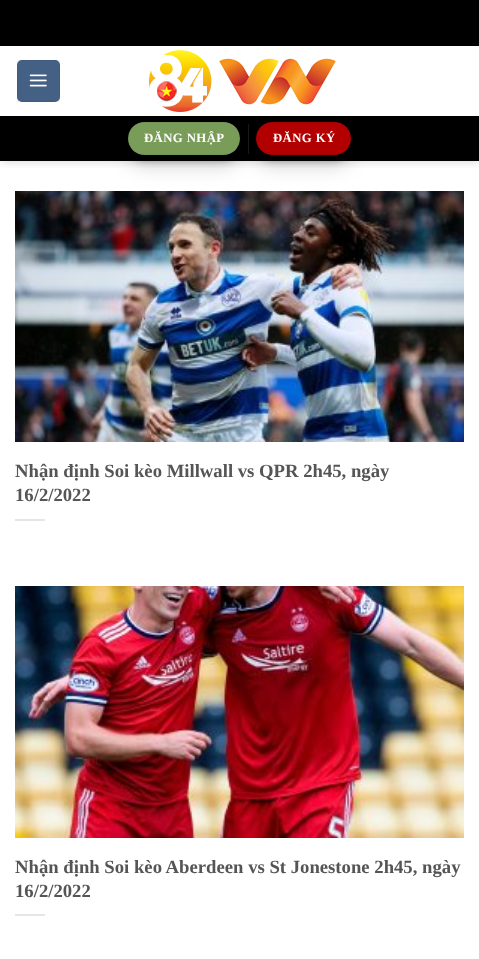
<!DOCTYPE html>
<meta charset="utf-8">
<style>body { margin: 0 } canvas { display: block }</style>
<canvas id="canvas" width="479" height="959"></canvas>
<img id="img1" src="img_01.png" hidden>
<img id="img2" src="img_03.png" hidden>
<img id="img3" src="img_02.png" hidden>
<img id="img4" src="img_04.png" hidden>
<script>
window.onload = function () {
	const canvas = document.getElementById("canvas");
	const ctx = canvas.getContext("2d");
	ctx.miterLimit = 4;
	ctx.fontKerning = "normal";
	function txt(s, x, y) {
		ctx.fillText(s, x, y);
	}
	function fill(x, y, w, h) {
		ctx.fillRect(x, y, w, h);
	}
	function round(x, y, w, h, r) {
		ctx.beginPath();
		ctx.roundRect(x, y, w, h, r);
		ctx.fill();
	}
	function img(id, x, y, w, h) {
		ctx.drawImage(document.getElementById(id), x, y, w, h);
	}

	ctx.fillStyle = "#FFFFFF";
	fill(0, 0, 479, 959);
	ctx.save();
	ctx.beginPath();
	ctx.rect(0, 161, 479, 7);
	ctx.clip();
	ctx.fillStyle = "rgba(0, 0, 0, 0.15)";
	ctx.filter = "blur(5px)";
	ctx.beginPath();
	ctx.rect(1, 1, 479, 161);
	ctx.fill();
	ctx.filter = "none";
	ctx.restore();
	ctx.fillStyle = "#000000";
	fill(0, 0, 479, 46);
	ctx.fillStyle = "#446084";
	round(17, 60, 43, 42, 5);
	ctx.strokeStyle = "rgba(0, 0, 0, 0.05)";
	ctx.strokeRect(17.5, 60.5, 42, 41);
	img("img1", 29, 74, 18, 13);
	ctx.fillStyle = "#000000";
	fill(0, 116, 479, 45);
	img("img2", 15, 191, 449, 251);
	ctx.fillStyle = "rgba(0, 0, 0, 0.19)";
	ctx.filter = "blur(10px)";
	ctx.beginPath();
	ctx.roundRect(128, 132, 112, 33, 16.5);
	ctx.fill();
	ctx.filter = "none";
	ctx.fillStyle = "rgba(0, 0, 0, 0.22)";
	ctx.filter = "blur(3px)";
	ctx.beginPath();
	ctx.roundRect(128, 128, 112, 33, 16.5);
	ctx.fill();
	ctx.filter = "none";
	ctx.fillStyle = "#7A9C59";
	round(128, 122, 112, 33, 16.5);
	ctx.strokeRect(128.5, 122.5, 111, 32);
	ctx.fillStyle = "#1A1A1A";
	fill(248, 124, 1, 30);
	ctx.fillStyle = "rgba(0, 0, 0, 0.19)";
	ctx.filter = "blur(10px)";
	ctx.beginPath();
	ctx.roundRect(256, 132, 95, 33, 16.5);
	ctx.fill();
	ctx.filter = "none";
	img("img3", 149, 50, 187, 62);
	ctx.fillStyle = "rgba(0, 0, 0, 0.22)";
	ctx.filter = "blur(3px)";
	ctx.beginPath();
	ctx.roundRect(256, 128, 95, 33, 16.5);
	ctx.fill();
	ctx.filter = "none";
	ctx.fillStyle = "#B20000";
	round(256, 122, 95, 33, 16.5);
	ctx.strokeRect(256.5, 122.5, 94, 32);
	ctx.fillStyle = "#E6E6E6";
	fill(15, 519, 30, 2);
	img("img4", 15, 586, 449, 252);
	fill(15, 914, 30, 2);
	ctx.letterSpacing = "0.4px";
	ctx.font = "bold 12.75px Liberation Serif";
	ctx.fillStyle = "#FFFFFF";
	txt("ĐĂNG NHẬP", 144, 142);
	txt("ĐĂNG KÝ", 273, 142);
	ctx.letterSpacing = "0px";
	ctx.font = "bold 18.7px Liberation Serif";
	ctx.fillStyle = "#555555";
	txt("Nhận định Soi kèo Millwall vs QPR 2h45, ngày", 15, 477);
	txt("16/2/2022", 15, 501);
	txt("Nhận định Soi kèo Aberdeen vs St Jonestone 2h45, ngày", 15, 873);
	txt("16/2/2022", 15, 897);
};
</script>
